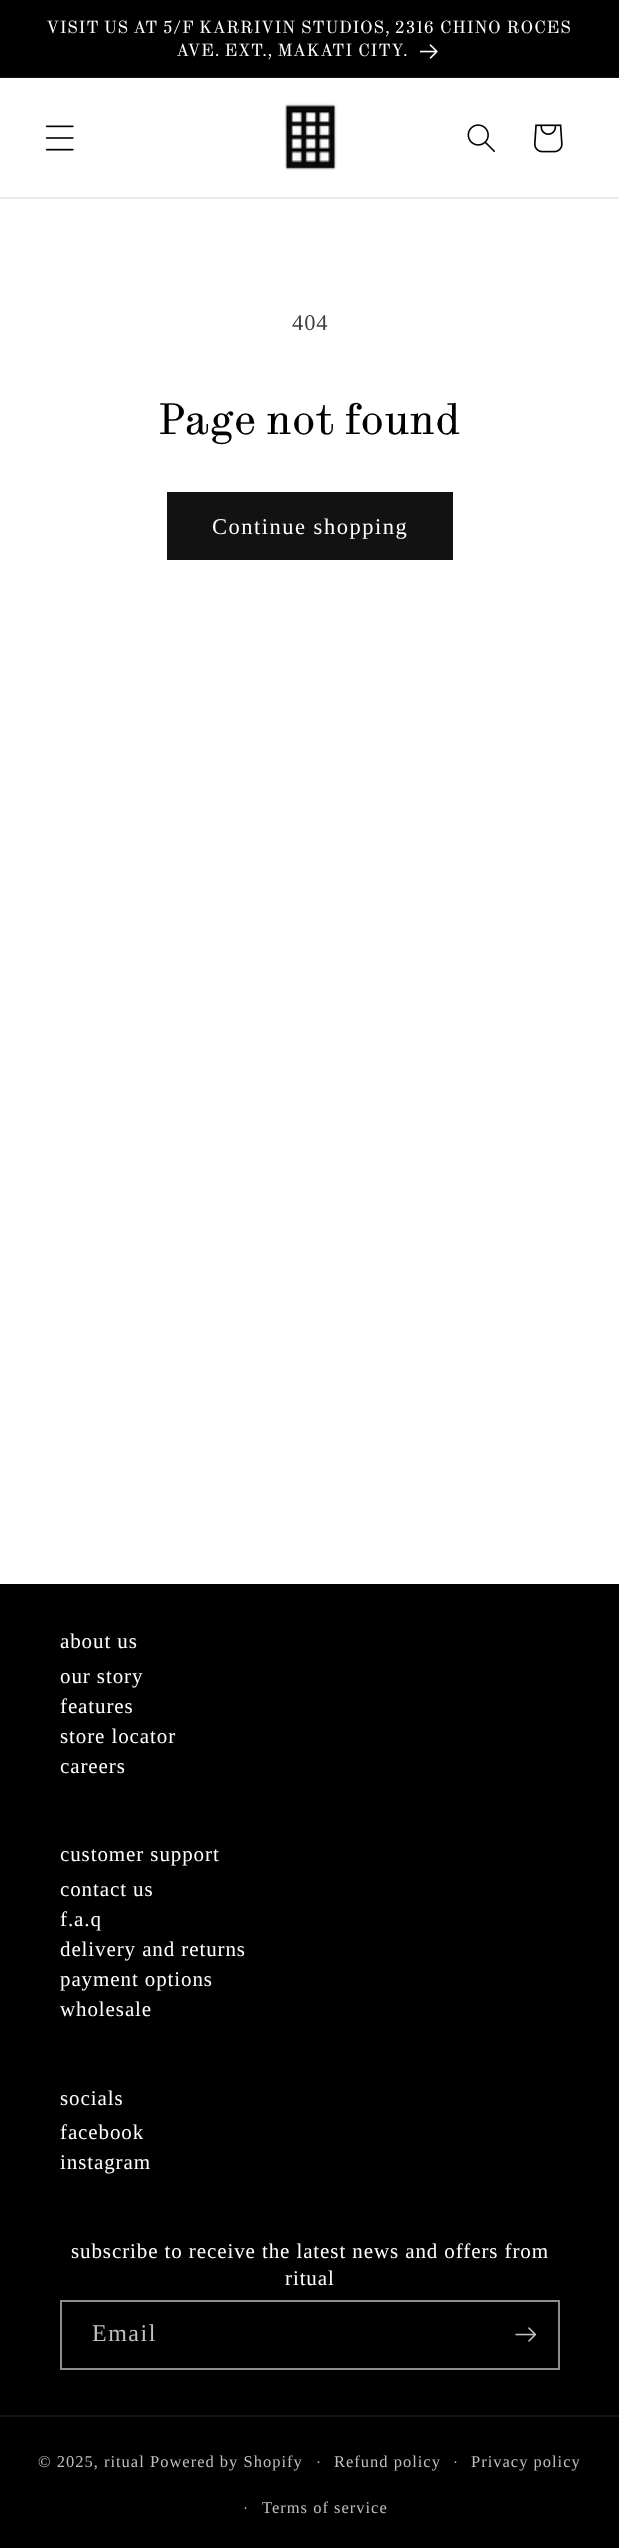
<!DOCTYPE html>
<meta charset="utf-8">
<style>body { margin: 0 } canvas { display: block }</style>
<canvas id="canvas" width="619" height="2548"></canvas>
<img id="img1" src="img_01.png" hidden>
<img id="img2" src="img_02.png" hidden>
<img id="img3" src="img_03.png" hidden>
<img id="img4" src="img_04.png" hidden>
<img id="img5" src="img_05.png" hidden>
<img id="img6" src="img_06.png" hidden>
<script>
window.onload = function () {
	const canvas = document.getElementById("canvas");
	const ctx = canvas.getContext("2d");
	ctx.miterLimit = 4;
	ctx.fontKerning = "normal";
	function txt(s, x, y) {
		ctx.fillText(s, x, y);
	}
	function fill(x, y, w, h) {
		ctx.fillRect(x, y, w, h);
	}
	function img(id, x, y, w, h) {
		ctx.drawImage(document.getElementById(id), x, y, w, h);
	}

	ctx.fillStyle = "#FFFFFF";
	fill(0, 0, 619, 2548);
	ctx.fillStyle = "#000000";
	fill(0, 0, 619, 77);
	ctx.fillStyle = "#141414";
	fill(0, 77, 619, 1);
	img("img1", 420, 44, 18, 15);
	ctx.fillStyle = "#EBEBEB";
	fill(0, 197, 619, 2);
	img("img2", 45, 125, 29, 26);
	img("img3", 284, 102, 53, 68);
	img("img4", 467, 124, 28, 28);
	img("img5", 534, 124, 29, 29);
	ctx.fillStyle = "#121212";
	fill(167, 492, 286, 68);
	ctx.fillStyle = "#000000";
	fill(0, 1584, 619, 964);
	ctx.strokeStyle = "#8C8C8C";
	ctx.lineWidth = 2;
	ctx.strokeRect(61, 2301, 498, 68);
	img("img6", 515, 2327, 22, 15);
	ctx.fillStyle = "#141414";
	fill(0, 2415, 619, 2);
	ctx.letterSpacing = "1.5px";
	ctx.font = "18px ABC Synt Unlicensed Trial";
	ctx.fillStyle = "#FFFFFF";
	txt("VISIT US AT 5/F KARRIVIN STUDIOS, 2316 CHINO ROCES", 47, 33);
	txt("AVE. EXT., MAKATI CITY.", 177, 56);
	ctx.letterSpacing = "0.9px";
	ctx.font = "22.5px Liberation Serif";
	ctx.fillStyle = "#404040";
	txt("404", 292, 330);
	ctx.font = "45px ABC Synt Unlicensed Trial";
	ctx.fillStyle = "#000000";
	txt("Page not found", 159, 434);
	ctx.letterSpacing = "1.5px";
	ctx.font = "22.5px Liberation Serif";
	ctx.fillStyle = "#FFFFFF";
	txt("Continue shopping", 212, 534);
	ctx.letterSpacing = "0.9px";
	ctx.font = "21px Liberation Serif";
	txt("about us", 60, 1648);
	txt("our story", 60, 1683);
	txt("features", 60, 1713);
	txt("store locator", 60, 1743);
	txt("careers", 60, 1773);
	txt("customer support", 60, 1861);
	txt("contact us", 60, 1896);
	txt("f.a.q", 60, 1926);
	txt("delivery and returns", 60, 1956);
	txt("payment options", 60, 1986);
	txt("wholesale", 60, 2016);
	txt("socials", 60, 2105);
	txt("facebook", 60, 2139);
	txt("instagram", 60, 2169);
	txt("subscribe to receive the latest news and offers from", 71, 2258);
	txt("ritual", 285, 2285);
	ctx.letterSpacing = "1.5px";
	ctx.font = "24px Liberation Serif";
	ctx.fillStyle = "#BFBFBF";
	txt("Email", 92, 2341);
	ctx.letterSpacing = "1px";
	ctx.font = "16.5px Liberation Serif";
	txt("© 2025, ritual", 38, 2467);
	txt("Powered by Shopify", 150, 2467);
	ctx.font = "15px Liberation Serif";
	txt("·", 316, 2467);
	ctx.font = "16.5px Liberation Serif";
	txt("Refund policy", 334, 2467);
	ctx.font = "15px Liberation Serif";
	txt("·", 453, 2467);
	ctx.font = "16.5px Liberation Serif";
	txt("Privacy policy", 471, 2467);
	ctx.font = "15px Liberation Serif";
	txt("·", 243, 2513);
	ctx.font = "16.5px Liberation Serif";
	txt("Terms of service", 262, 2513);
};
</script>
